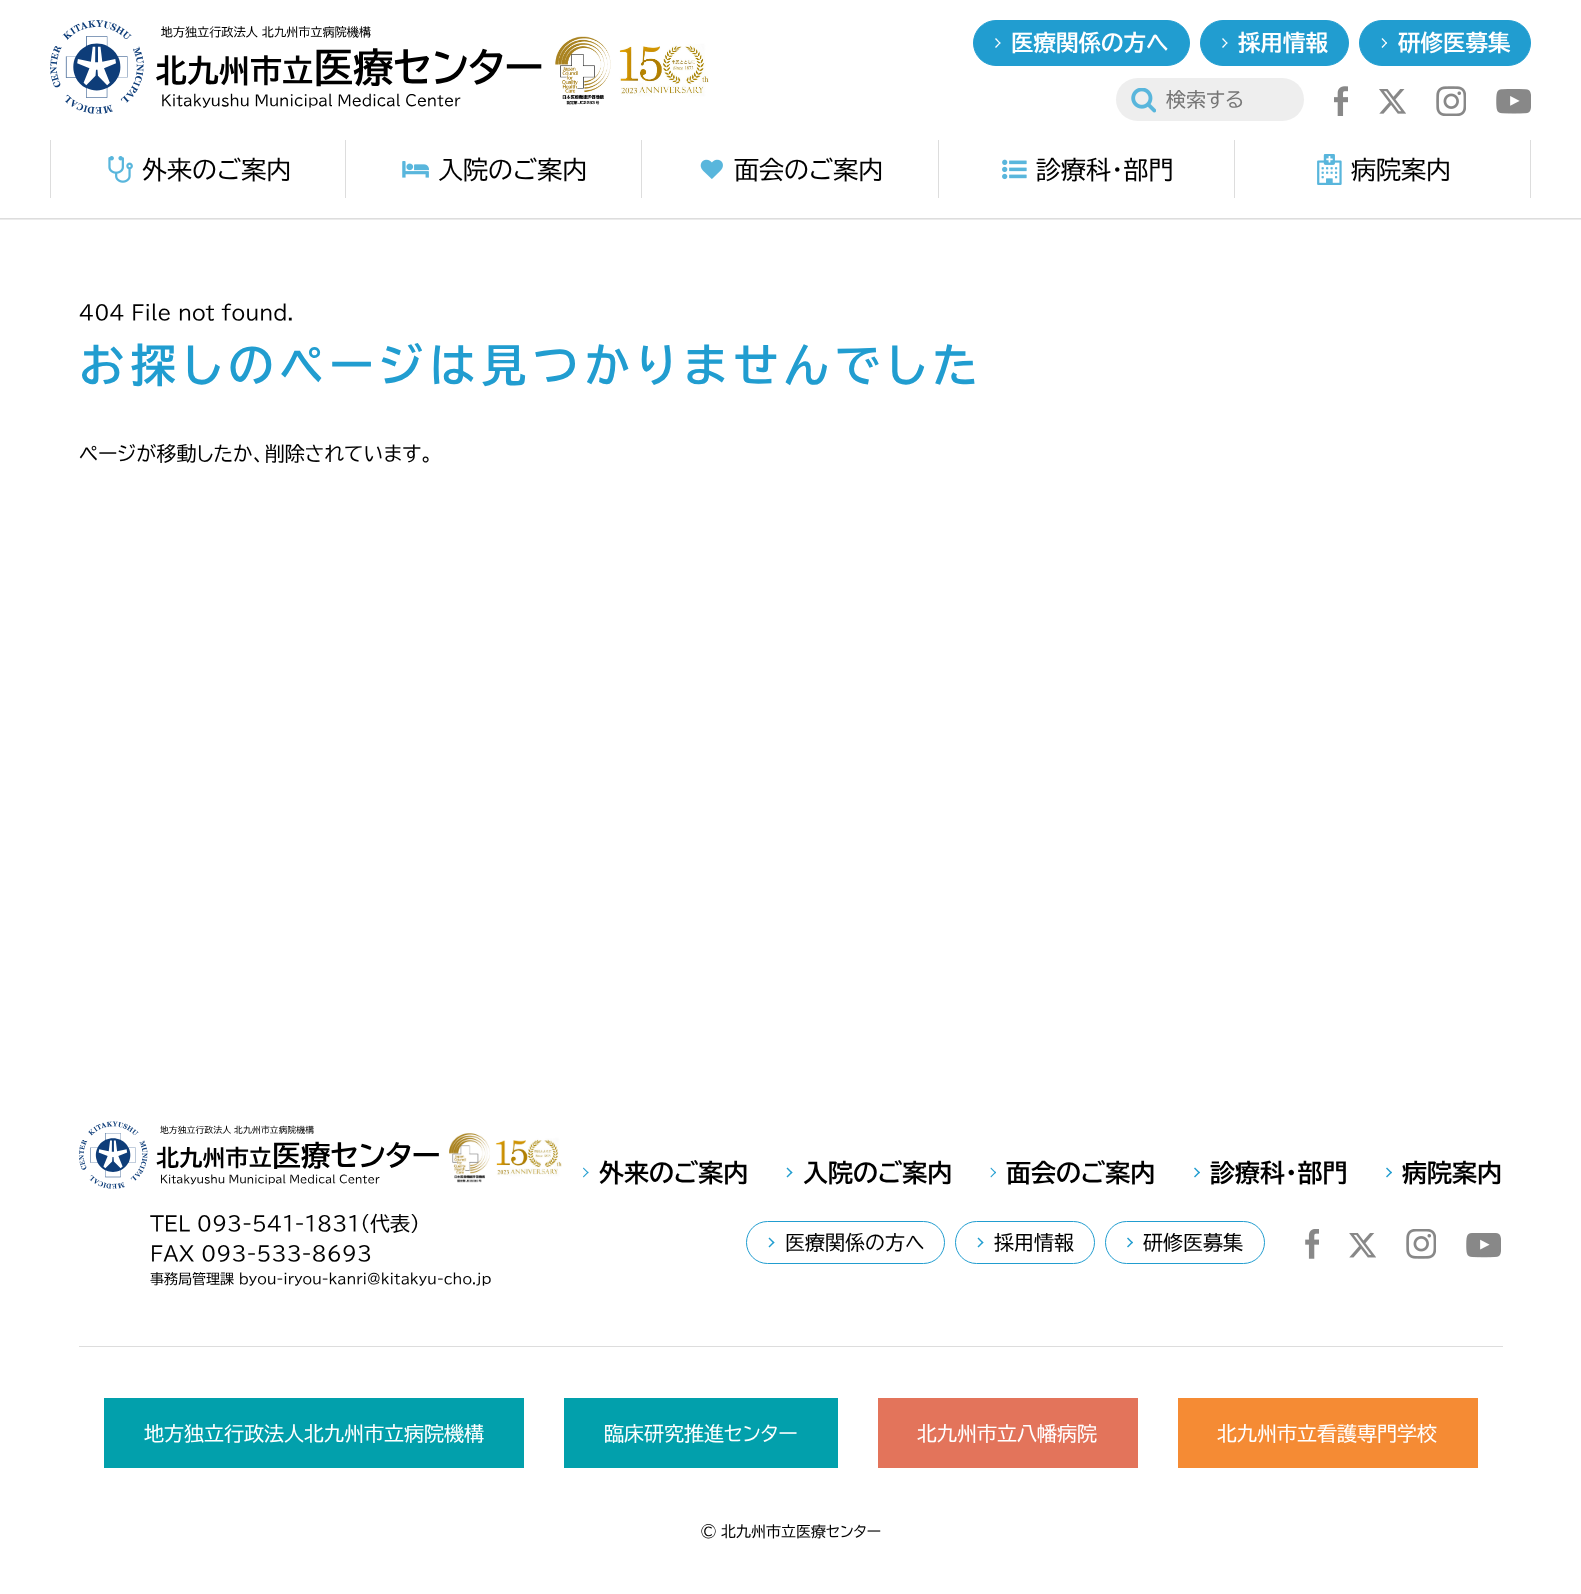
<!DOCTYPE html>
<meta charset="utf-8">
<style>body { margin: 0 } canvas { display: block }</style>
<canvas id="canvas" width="1581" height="1594"></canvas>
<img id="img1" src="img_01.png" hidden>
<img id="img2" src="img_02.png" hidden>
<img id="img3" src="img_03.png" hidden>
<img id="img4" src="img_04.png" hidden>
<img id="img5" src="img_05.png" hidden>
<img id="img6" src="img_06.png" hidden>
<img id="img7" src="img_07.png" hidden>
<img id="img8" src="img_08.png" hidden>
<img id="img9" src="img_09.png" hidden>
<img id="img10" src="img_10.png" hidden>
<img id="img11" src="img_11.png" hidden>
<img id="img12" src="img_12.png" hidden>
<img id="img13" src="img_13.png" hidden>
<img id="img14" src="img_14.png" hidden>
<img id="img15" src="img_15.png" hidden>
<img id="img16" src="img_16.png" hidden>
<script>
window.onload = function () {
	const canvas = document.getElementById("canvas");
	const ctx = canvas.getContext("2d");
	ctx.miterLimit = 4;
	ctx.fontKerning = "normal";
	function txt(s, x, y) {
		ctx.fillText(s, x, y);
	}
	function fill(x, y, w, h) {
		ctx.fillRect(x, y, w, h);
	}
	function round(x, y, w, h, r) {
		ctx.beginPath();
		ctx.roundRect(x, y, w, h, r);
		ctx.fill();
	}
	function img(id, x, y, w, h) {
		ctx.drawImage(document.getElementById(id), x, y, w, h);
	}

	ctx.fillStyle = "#FFFFFF";
	fill(0, 0, 1581, 1594);
	ctx.fillStyle = "#DDDDDD";
	fill(0, 218, 1581, 1);
	img("img1", 50, 20, 659, 94);
	ctx.fillStyle = "#219DD0";
	ctx.beginPath();
	ctx.roundRect(973.5, 20.5, 216, 45, 22.5);
	ctx.fill();
	ctx.strokeStyle = "#219DD0";
	ctx.stroke();
	ctx.fillStyle = "#FFFFFF";
	ctx.beginPath();
	ctx.moveTo(996, 38);
	ctx.lineTo(1000.5, 43);
	ctx.lineTo(1000, 44);
	ctx.lineTo(995, 39);
	ctx.closePath();
	ctx.fill();
	ctx.beginPath();
	ctx.moveTo(1000, 42);
	ctx.lineTo(1000.5, 43);
	ctx.lineTo(996, 48);
	ctx.lineTo(995, 47);
	ctx.closePath();
	ctx.fill();
	ctx.fillStyle = "#219DD0";
	ctx.beginPath();
	ctx.roundRect(1200.5, 20.5, 148, 45, 22.5);
	ctx.fill();
	ctx.stroke();
	ctx.fillStyle = "#FFFFFF";
	ctx.beginPath();
	ctx.moveTo(1223, 38);
	ctx.lineTo(1227.5, 43);
	ctx.lineTo(1227, 44);
	ctx.lineTo(1222, 39);
	ctx.closePath();
	ctx.fill();
	ctx.beginPath();
	ctx.moveTo(1227, 42);
	ctx.lineTo(1227.5, 43);
	ctx.lineTo(1223, 48);
	ctx.lineTo(1222, 47);
	ctx.closePath();
	ctx.fill();
	ctx.fillStyle = "#219DD0";
	ctx.beginPath();
	ctx.roundRect(1359.5, 20.5, 171, 45, 22.5);
	ctx.fill();
	ctx.stroke();
	ctx.fillStyle = "#FFFFFF";
	ctx.beginPath();
	ctx.moveTo(1382.5, 38);
	ctx.lineTo(1387, 43);
	ctx.lineTo(1386.5, 44);
	ctx.lineTo(1381.5, 39);
	ctx.closePath();
	ctx.fill();
	ctx.beginPath();
	ctx.moveTo(1386.5, 42);
	ctx.lineTo(1387, 43);
	ctx.lineTo(1382.5, 48);
	ctx.lineTo(1381.5, 47);
	ctx.closePath();
	ctx.fill();
	ctx.fillStyle = "#EEEEEE";
	round(1116, 78, 188, 43, 21.5);
	img("img2", 1131, 88, 25, 25);
	img("img3", 1334, 86, 14, 30);
	img("img4", 1379, 89, 27, 25);
	img("img5", 1436, 86, 30, 30);
	img("img6", 1496, 89, 35, 25);
	ctx.fillStyle = "#DDDDDD";
	fill(345, 140, 1, 58);
	fill(50, 140, 1, 58);
	img("img7", 108, 156, 25, 27);
	fill(641, 140, 1, 58);
	img("img8", 402, 161, 27, 17);
	fill(938, 140, 1, 58);
	img("img9", 700, 159, 23, 20);
	fill(1234, 140, 1, 58);
	img("img10", 1002, 159, 25, 21);
	fill(1530, 140, 1, 58);
	img("img11", 1317, 154, 25, 31);
	ctx.fillStyle = "#EBEBEB";
	fill(0, 219, 1581, 1);
	img("img12", 79, 1121, 483, 68);
	ctx.fillStyle = "#219DD0";
	ctx.beginPath();
	ctx.moveTo(583.5, 1167.5);
	ctx.lineTo(588.5, 1172.5);
	ctx.lineTo(588, 1173.5);
	ctx.lineTo(583, 1168.5);
	ctx.closePath();
	ctx.fill();
	ctx.beginPath();
	ctx.moveTo(588, 1171.5);
	ctx.lineTo(588.5, 1172.5);
	ctx.lineTo(583.5, 1177.5);
	ctx.lineTo(583, 1176.5);
	ctx.closePath();
	ctx.fill();
	ctx.beginPath();
	ctx.moveTo(787.5, 1167.5);
	ctx.lineTo(792.5, 1172.5);
	ctx.lineTo(791.5, 1173.5);
	ctx.lineTo(786.5, 1168.5);
	ctx.closePath();
	ctx.fill();
	ctx.beginPath();
	ctx.moveTo(791.5, 1171.5);
	ctx.lineTo(792.5, 1172.5);
	ctx.lineTo(787.5, 1177.5);
	ctx.lineTo(786.5, 1176.5);
	ctx.closePath();
	ctx.fill();
	ctx.beginPath();
	ctx.moveTo(991, 1167.5);
	ctx.lineTo(996, 1172.5);
	ctx.lineTo(995.5, 1173.5);
	ctx.lineTo(990.5, 1168.5);
	ctx.closePath();
	ctx.fill();
	ctx.beginPath();
	ctx.moveTo(995.5, 1171.5);
	ctx.lineTo(996, 1172.5);
	ctx.lineTo(991, 1177.5);
	ctx.lineTo(990.5, 1176.5);
	ctx.closePath();
	ctx.fill();
	ctx.beginPath();
	ctx.moveTo(1195, 1167.5);
	ctx.lineTo(1200, 1172.5);
	ctx.lineTo(1199, 1173.5);
	ctx.lineTo(1194, 1168.5);
	ctx.closePath();
	ctx.fill();
	ctx.beginPath();
	ctx.moveTo(1199, 1171.5);
	ctx.lineTo(1200, 1172.5);
	ctx.lineTo(1195, 1177.5);
	ctx.lineTo(1194, 1176.5);
	ctx.closePath();
	ctx.fill();
	ctx.beginPath();
	ctx.moveTo(1387, 1167.5);
	ctx.lineTo(1392, 1172.5);
	ctx.lineTo(1391, 1173.5);
	ctx.lineTo(1386, 1168.5);
	ctx.closePath();
	ctx.fill();
	ctx.beginPath();
	ctx.moveTo(1391, 1171.5);
	ctx.lineTo(1392, 1172.5);
	ctx.lineTo(1387, 1177.5);
	ctx.lineTo(1386, 1176.5);
	ctx.closePath();
	ctx.fill();
	ctx.beginPath();
	ctx.roundRect(746.5, 1221.5, 198, 42, 21);
	ctx.stroke();
	ctx.beginPath();
	ctx.moveTo(769.5, 1237.5);
	ctx.lineTo(774.5, 1242.5);
	ctx.lineTo(773.5, 1243.5);
	ctx.lineTo(768.5, 1238.5);
	ctx.closePath();
	ctx.fill();
	ctx.beginPath();
	ctx.moveTo(773.5, 1241.5);
	ctx.lineTo(774.5, 1242.5);
	ctx.lineTo(769.5, 1247.5);
	ctx.lineTo(768.5, 1246.5);
	ctx.closePath();
	ctx.fill();
	ctx.beginPath();
	ctx.roundRect(955.5, 1221.5, 139, 42, 21);
	ctx.stroke();
	ctx.beginPath();
	ctx.moveTo(978.5, 1237.5);
	ctx.lineTo(983.5, 1242.5);
	ctx.lineTo(982.5, 1243.5);
	ctx.lineTo(977.5, 1238.5);
	ctx.closePath();
	ctx.fill();
	ctx.beginPath();
	ctx.moveTo(982.5, 1241.5);
	ctx.lineTo(983.5, 1242.5);
	ctx.lineTo(978.5, 1247.5);
	ctx.lineTo(977.5, 1246.5);
	ctx.closePath();
	ctx.fill();
	ctx.beginPath();
	ctx.roundRect(1105.5, 1221.5, 159, 42, 21);
	ctx.stroke();
	ctx.beginPath();
	ctx.moveTo(1128, 1237.5);
	ctx.lineTo(1133, 1242.5);
	ctx.lineTo(1132, 1243.5);
	ctx.lineTo(1127, 1238.5);
	ctx.closePath();
	ctx.fill();
	ctx.beginPath();
	ctx.moveTo(1132, 1241.5);
	ctx.lineTo(1133, 1242.5);
	ctx.lineTo(1128, 1247.5);
	ctx.lineTo(1127, 1246.5);
	ctx.closePath();
	ctx.fill();
	img("img13", 1305, 1229, 14, 30);
	img("img14", 1349, 1233, 27, 25);
	img("img15", 1406, 1229, 30, 30);
	img("img16", 1466, 1233, 35, 25);
	ctx.fillStyle = "#DDDDDD";
	fill(79, 1346, 1424, 1);
	ctx.fillStyle = "#02A0AC";
	fill(104, 1398, 420, 70);
	fill(564, 1398, 274, 70);
	ctx.fillStyle = "#E3745B";
	fill(878, 1398, 260, 70);
	ctx.fillStyle = "#F58B34";
	fill(1178, 1398, 300, 70);
	ctx.font = "bold 22.5px BIZ UDPGothic";
	ctx.fillStyle = "#FFFFFF";
	txt("医療関係の方へ", 1011, 51);
	txt("採用情報", 1238, 51);
	txt("研修医募集", 1398, 51);
	ctx.save();
	ctx.beginPath();
	ctx.rect(1166, 90, 128, 20);
	ctx.clip();
	ctx.font = "20px BIZ UDPGothic";
	ctx.fillStyle = "#757575";
	txt("検索する", 1166, 107);
	ctx.restore();
	ctx.font = "25px BIZ UDPGothic";
	ctx.fillStyle = "#000000";
	txt("外来のご案内", 142, 179);
	txt("入院のご案内", 438, 179);
	txt("面会のご案内", 734, 179);
	txt("診療科・部門", 1036, 179);
	txt("病院案内", 1351, 179);
	ctx.font = "20px BIZ UDPGothic";
	txt("404 File not found.", 79, 320);
	ctx.letterSpacing = "6.75px";
	ctx.font = "bold 45px BIZ UDPGothic";
	ctx.fillStyle = "#219DD0";
	txt("お探しのページは見つかりませんでした", 79, 382);
	ctx.letterSpacing = "0px";
	ctx.font = "20px BIZ UDPGothic";
	ctx.fillStyle = "#000000";
	txt("ページが移動したか、削除されています。", 79, 461);
	txt("TEL 093-541-1831（代表）", 150, 1231);
	txt("FAX 093-533-8693", 150, 1261);
	ctx.font = "14px BIZ UDPGothic";
	txt("事務局管理課 byou-iryou-kanri@kitakyu-cho.jp", 150, 1284);
	ctx.font = "bold 25px BIZ UDPGothic";
	txt("外来のご案内", 599, 1182);
	txt("入院のご案内", 803, 1182);
	txt("面会のご案内", 1006, 1182);
	txt("診療科・部門", 1210, 1182);
	txt("病院案内", 1402, 1182);
	ctx.font = "20px BIZ UDPGothic";
	txt("医療関係の方へ", 785, 1250);
	txt("採用情報", 994, 1250);
	txt("研修医募集", 1143, 1250);
	ctx.fillStyle = "#FFFFFF";
	txt("地方独立行政法人北九州市立病院機構", 144, 1441);
	txt("臨床研究推進センター", 604, 1441);
	txt("北九州市立八幡病院", 917, 1441);
	txt("北九州市立看護専門学校", 1217, 1441);
	ctx.font = "15px BIZ UDPGothic";
	ctx.fillStyle = "#000000";
	txt("© 北九州市立医療センター", 701, 1537);
};
</script>
